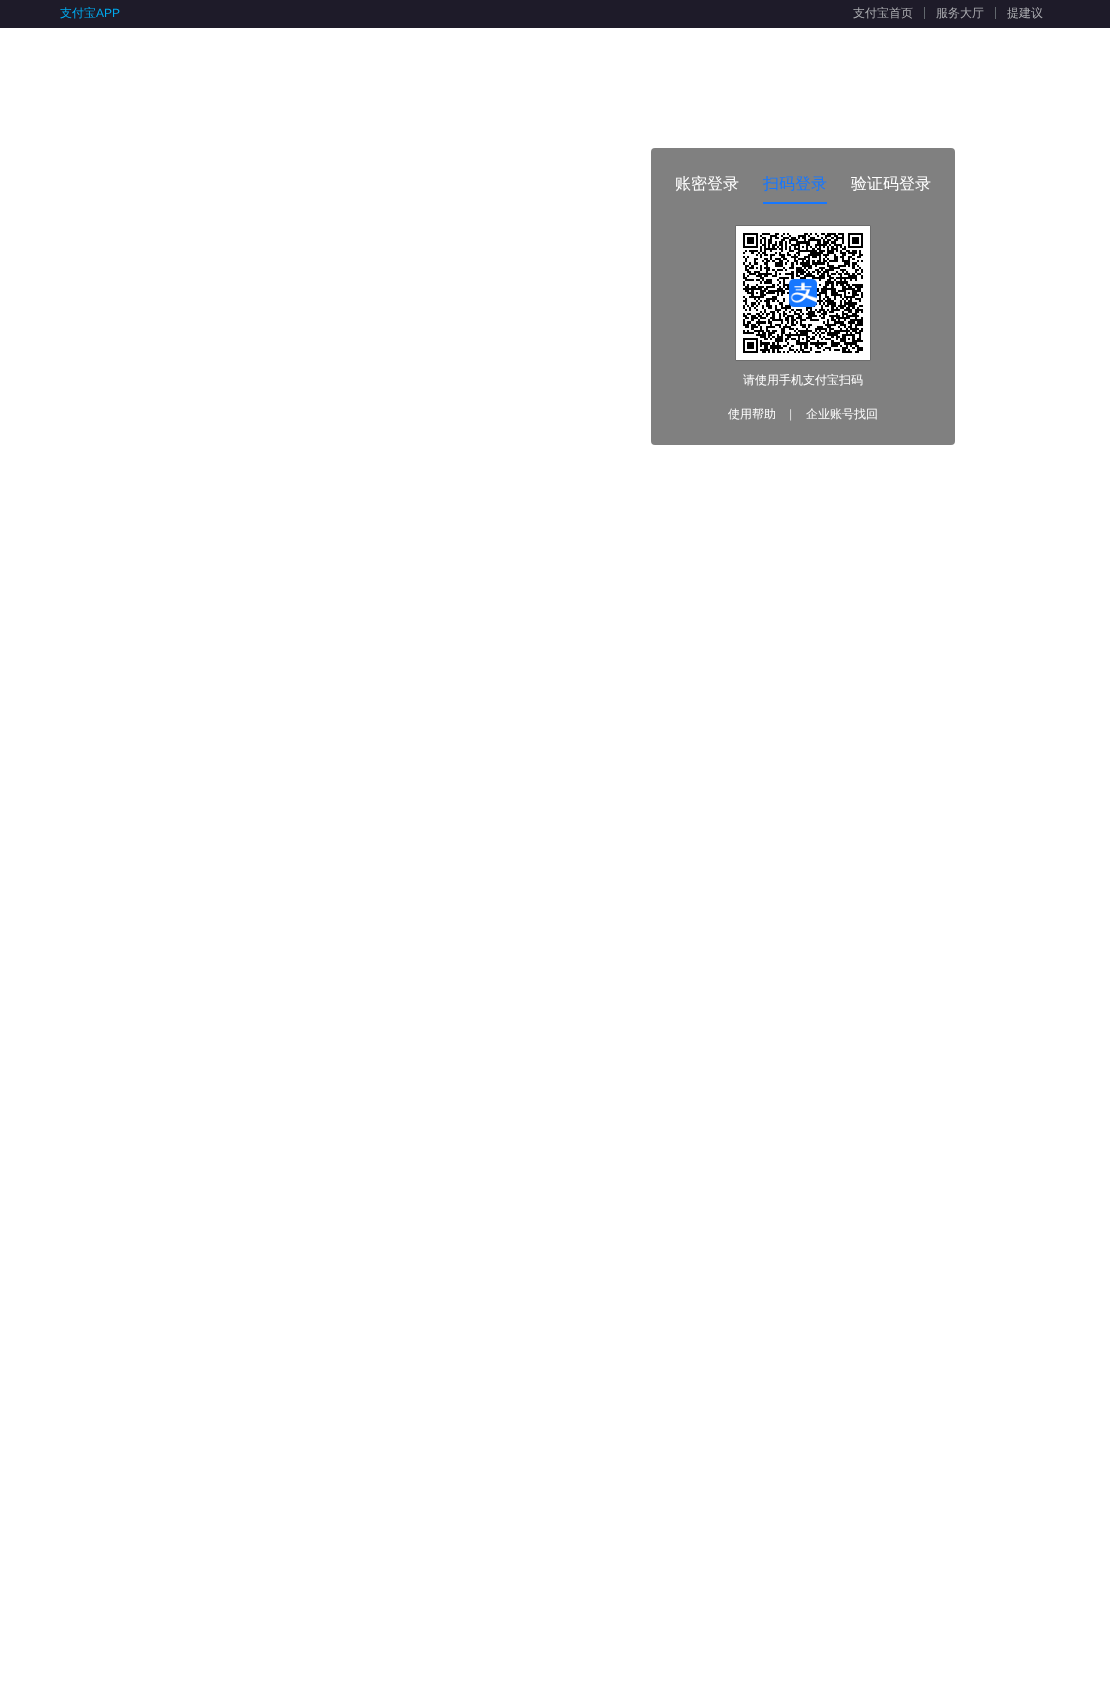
<!DOCTYPE html>
<meta charset="utf-8">
<style>body { margin: 0 } canvas { display: block }</style>
<canvas id="canvas" width="1110" height="1685"></canvas>
<img id="img1" src="img_01.png" hidden>
<script>
window.onload = function () {
	const canvas = document.getElementById("canvas");
	const ctx = canvas.getContext("2d");
	ctx.miterLimit = 4;
	ctx.fontKerning = "normal";
	function txt(s, x, y) {
		ctx.fillText(s, x, y);
	}
	function fill(x, y, w, h) {
		ctx.fillRect(x, y, w, h);
	}
	function img(id, x, y, w, h) {
		ctx.drawImage(document.getElementById(id), x, y, w, h);
	}

	ctx.fillStyle = "#FFFFFF";
	fill(0, 0, 1110, 1685);
	ctx.fillStyle = "#1E1B29";
	fill(0, 0, 1110, 28);
	ctx.fillStyle = "#61676D";
	fill(924, 7, 1, 12);
	fill(995, 7, 1, 12);
	ctx.fillStyle = "#808080";
	ctx.beginPath();
	ctx.roundRect(651, 148, 304, 56, [4, 4, 0, 0]);
	ctx.fill();
	ctx.fillStyle = "#1677FF";
	fill(763, 202, 64, 2);
	ctx.fillStyle = "#808080";
	ctx.beginPath();
	ctx.roundRect(651, 204, 304, 241, [0, 0, 4, 4]);
	ctx.fill();
	ctx.fillStyle = "#FFFFFF";
	ctx.beginPath();
	ctx.rect(735.5, 225.5, 135, 135);
	ctx.fill();
	ctx.strokeStyle = "#6C6C6C";
	ctx.stroke();
	img("img1", 743, 233, 120, 120);
	ctx.font = "500 12px WenQuanYi Zen Hei";
	ctx.fillStyle = "#00AAEE";
	txt("支付宝", 60, 17);
	ctx.font = "12px Liberation Sans";
	txt("APP", 96, 17);
	ctx.font = "500 12px WenQuanYi Zen Hei";
	ctx.fillStyle = "#AAABAF";
	txt("支付宝首页", 853, 17);
	txt("服务大厅", 936, 17);
	txt("提建议", 1007, 17);
	ctx.font = "500 16px WenQuanYi Zen Hei";
	ctx.fillStyle = "#FFFFFF";
	txt("账密登录", 675, 189);
	ctx.fillStyle = "#1677FF";
	txt("扫码登录", 763, 189);
	ctx.fillStyle = "#FFFFFF";
	txt("验证码登录", 851, 189);
	ctx.font = "500 12px WenQuanYi Zen Hei";
	txt("请使用手机支付宝扫码", 743, 384);
	txt("使用帮助", 728, 418);
	ctx.font = "12px Liberation Sans";
	ctx.fillStyle = "#DBDBDB";
	txt("|", 789, 418);
	ctx.font = "500 12px WenQuanYi Zen Hei";
	ctx.fillStyle = "#FFFFFF";
	txt("企业账号找回", 806, 418);
};
</script>
